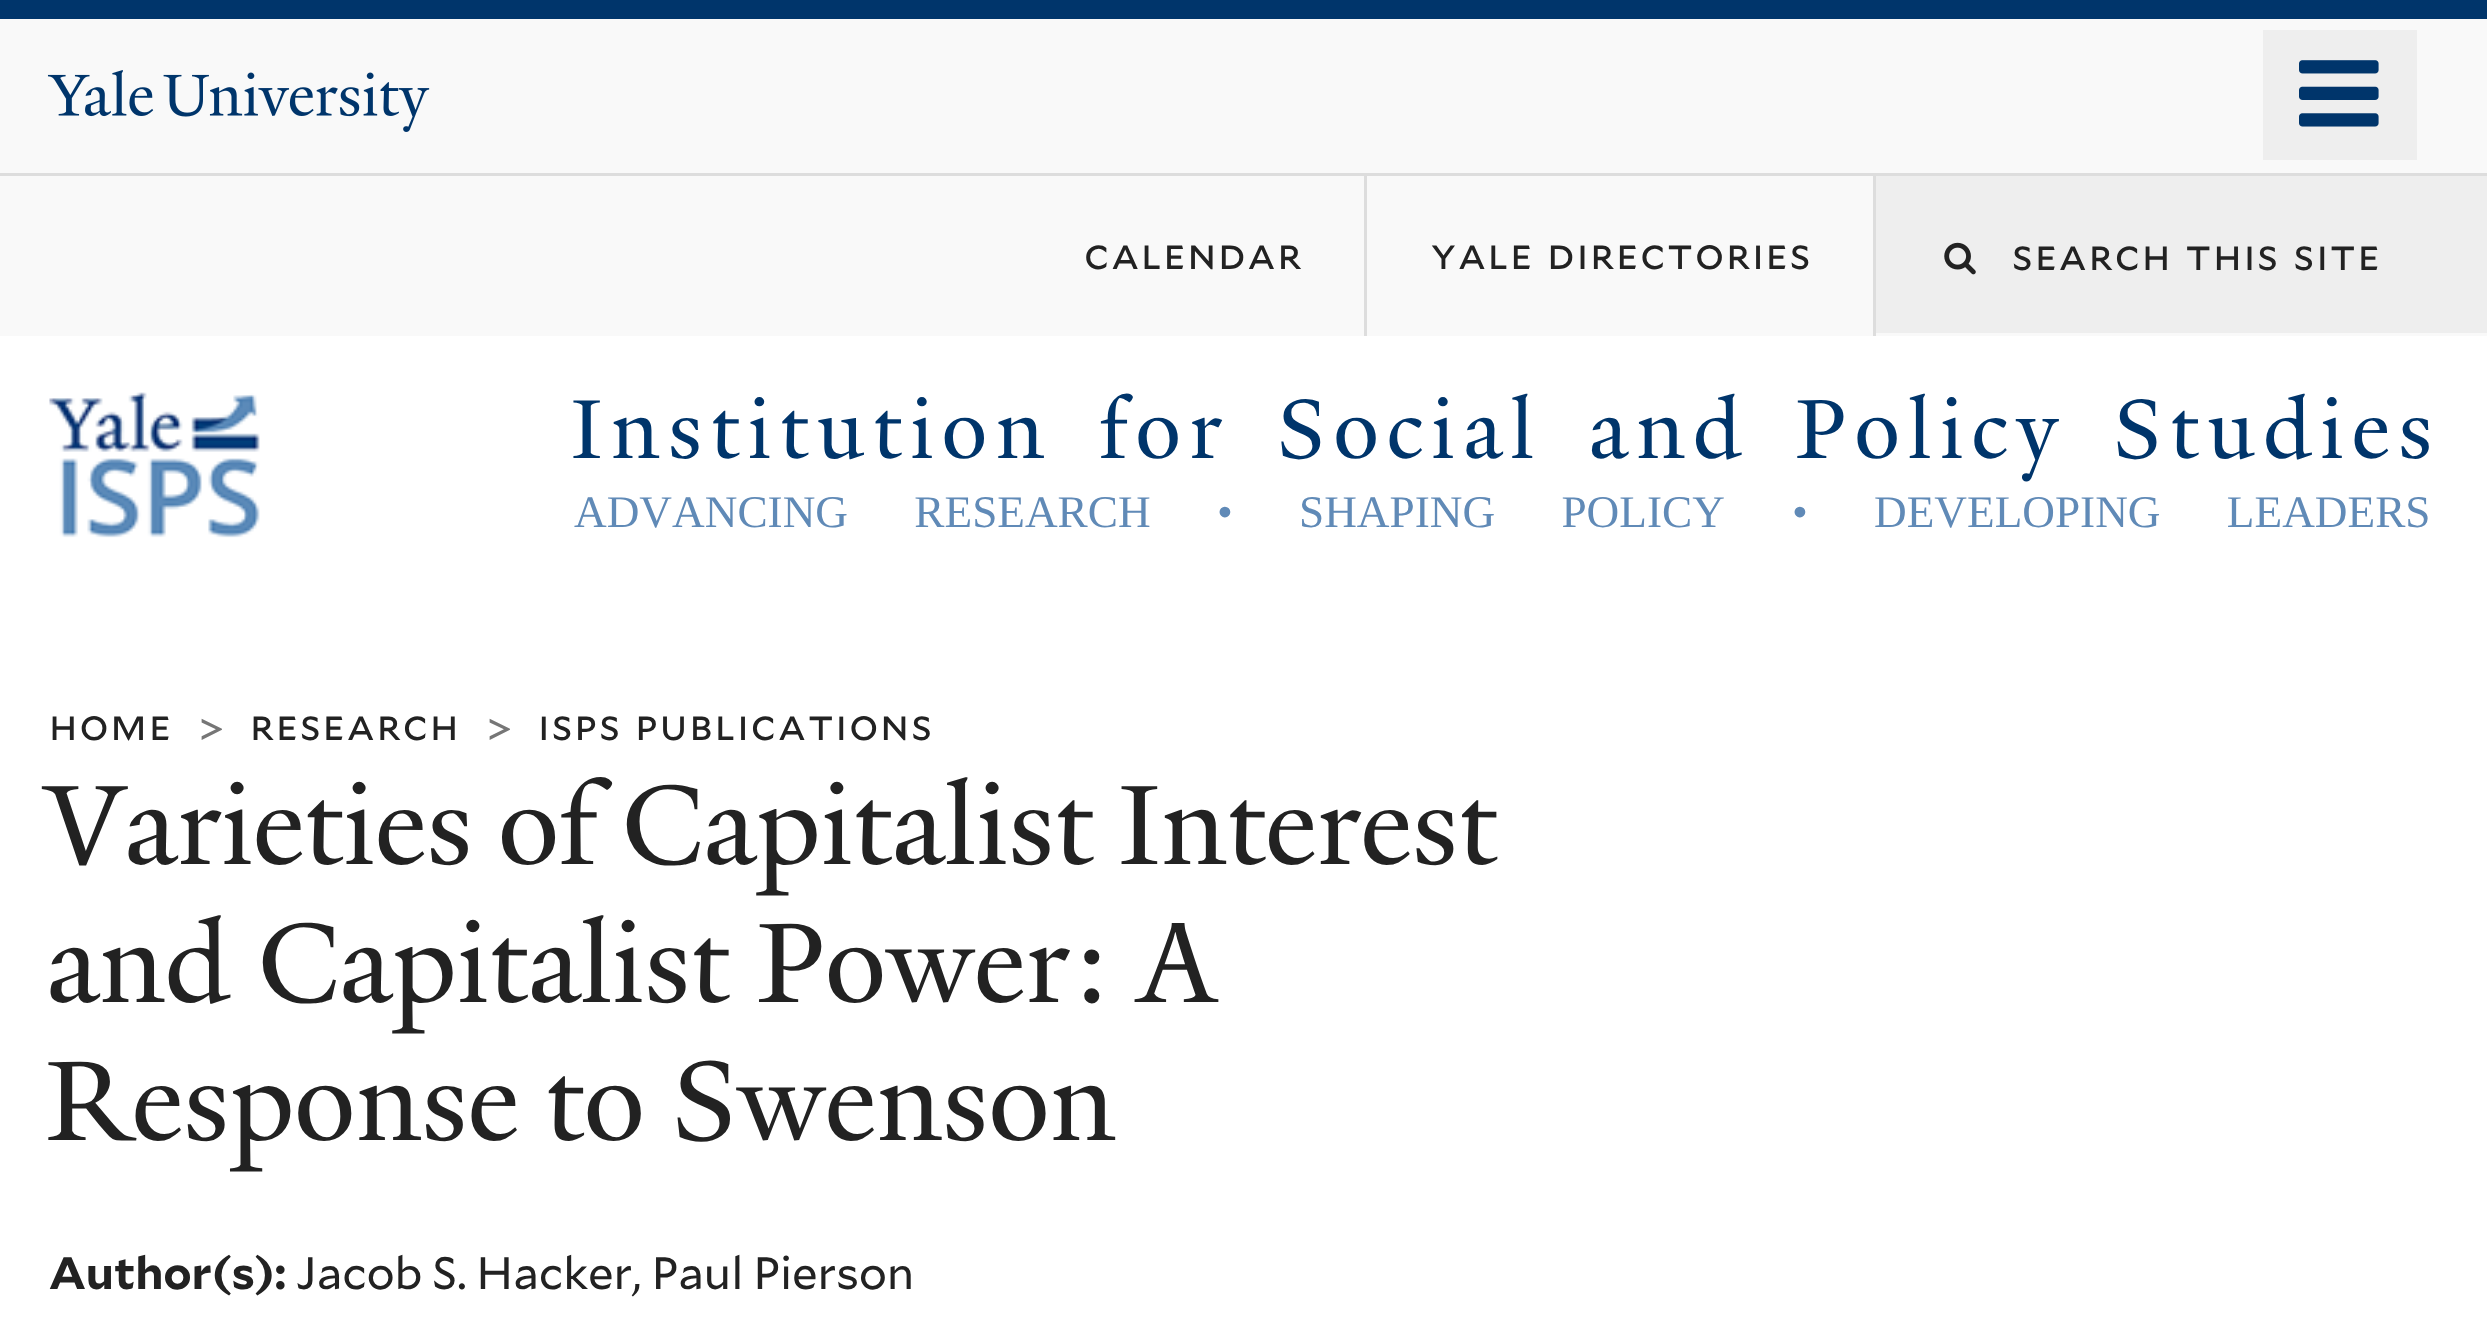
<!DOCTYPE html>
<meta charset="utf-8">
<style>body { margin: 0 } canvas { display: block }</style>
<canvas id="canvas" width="2487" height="1335"></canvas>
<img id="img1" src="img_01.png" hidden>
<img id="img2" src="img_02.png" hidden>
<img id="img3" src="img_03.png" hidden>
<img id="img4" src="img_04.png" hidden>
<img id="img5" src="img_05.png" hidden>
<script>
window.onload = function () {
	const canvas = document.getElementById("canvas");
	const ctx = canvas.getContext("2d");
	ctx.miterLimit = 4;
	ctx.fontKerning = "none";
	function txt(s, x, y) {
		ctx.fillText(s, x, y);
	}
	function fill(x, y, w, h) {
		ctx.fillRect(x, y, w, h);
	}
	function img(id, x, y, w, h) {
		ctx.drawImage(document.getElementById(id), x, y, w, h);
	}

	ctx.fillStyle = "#FFFFFF";
	fill(0, 0, 2487, 1335);
	ctx.fillStyle = "#00356B";
	fill(0, 0, 2487, 19);
	ctx.fillStyle = "#F9F9F9";
	fill(0, 19, 2487, 317);
	ctx.fillStyle = "#DDDDDD";
	fill(0, 173, 2487, 3);
	img("img1", 47, 70, 107, 47);
	img("img2", 163, 72, 267, 60);
	ctx.fillStyle = "#EEEEEE";
	fill(2263, 30, 154, 130);
	img("img3", 2299, 60, 80, 67);
	ctx.fillStyle = "#DDDDDD";
	fill(1364, 176, 3, 160);
	fill(1873, 176, 3, 160);
	ctx.fillStyle = "#EEEEEE";
	fill(1876, 176, 611, 157);
	img("img4", 1944, 242, 32, 33);
	img("img5", 49, 392, 211, 146);
	ctx.letterSpacing = "2.1px";
	ctx.font = "42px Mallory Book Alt";
	ctx.fillStyle = "#222222";
	txt("calendar", 1084, 269);
	ctx.wordSpacing = "2px";
	txt("yale directories", 1431, 269);
	txt("search this site", 2012, 270);
	ctx.letterSpacing = "8.25px";
	ctx.wordSpacing = "17.5px";
	ctx.font = "90.75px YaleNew";
	ctx.fillStyle = "#00356B";
	txt("Institution for Social and Policy Studies", 571, 458);
	ctx.letterSpacing = "0px";
	ctx.wordSpacing = "55px";
	ctx.font = "45.25px Liberation Serif";
	ctx.fillStyle = "#608AB7";
	txt("ADVANCING RESEARCH", 574, 527);
	ctx.wordSpacing = "0px";
	txt("•", 1217, 527);
	ctx.wordSpacing = "55px";
	txt("SHAPING POLICY", 1299, 527);
	ctx.wordSpacing = "0px";
	txt("•", 1792, 527);
	ctx.wordSpacing = "55px";
	txt("DEVELOPING LEADERS", 1874, 527);
	ctx.letterSpacing = "2.1px";
	ctx.wordSpacing = "0px";
	ctx.font = "42px Mallory Book Alt";
	ctx.fillStyle = "#222222";
	txt("home", 49, 740);
	ctx.font = "42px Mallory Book";
	ctx.fillStyle = "#767676";
	txt(">", 199, 744);
	ctx.font = "42px Mallory Book Alt";
	ctx.fillStyle = "#222222";
	txt("research", 250, 740);
	ctx.font = "42px Mallory Book";
	ctx.fillStyle = "#767676";
	txt(">", 487, 744);
	ctx.wordSpacing = "2px";
	ctx.font = "42px Mallory Book Alt";
	ctx.fillStyle = "#222222";
	txt("isps publications", 538, 740);
	ctx.letterSpacing = "0px";
	ctx.wordSpacing = "-3px";
	ctx.font = "122.5px YaleNew";
	txt("Varieties of Capitalist Interest", 46, 864);
	ctx.wordSpacing = "0px";
	txt("and Capitalist Power: A", 46, 1002);
	ctx.wordSpacing = "-2px";
	txt("Response to Swenson", 46, 1140);
	ctx.wordSpacing = "0px";
	ctx.font = "bold 45.25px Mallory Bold";
	txt("Author(s):", 49, 1289);
	ctx.font = "45.25px Mallory Book";
	txt("Jacob S. Hacker, Paul Pierson", 296, 1289);
};
</script>
